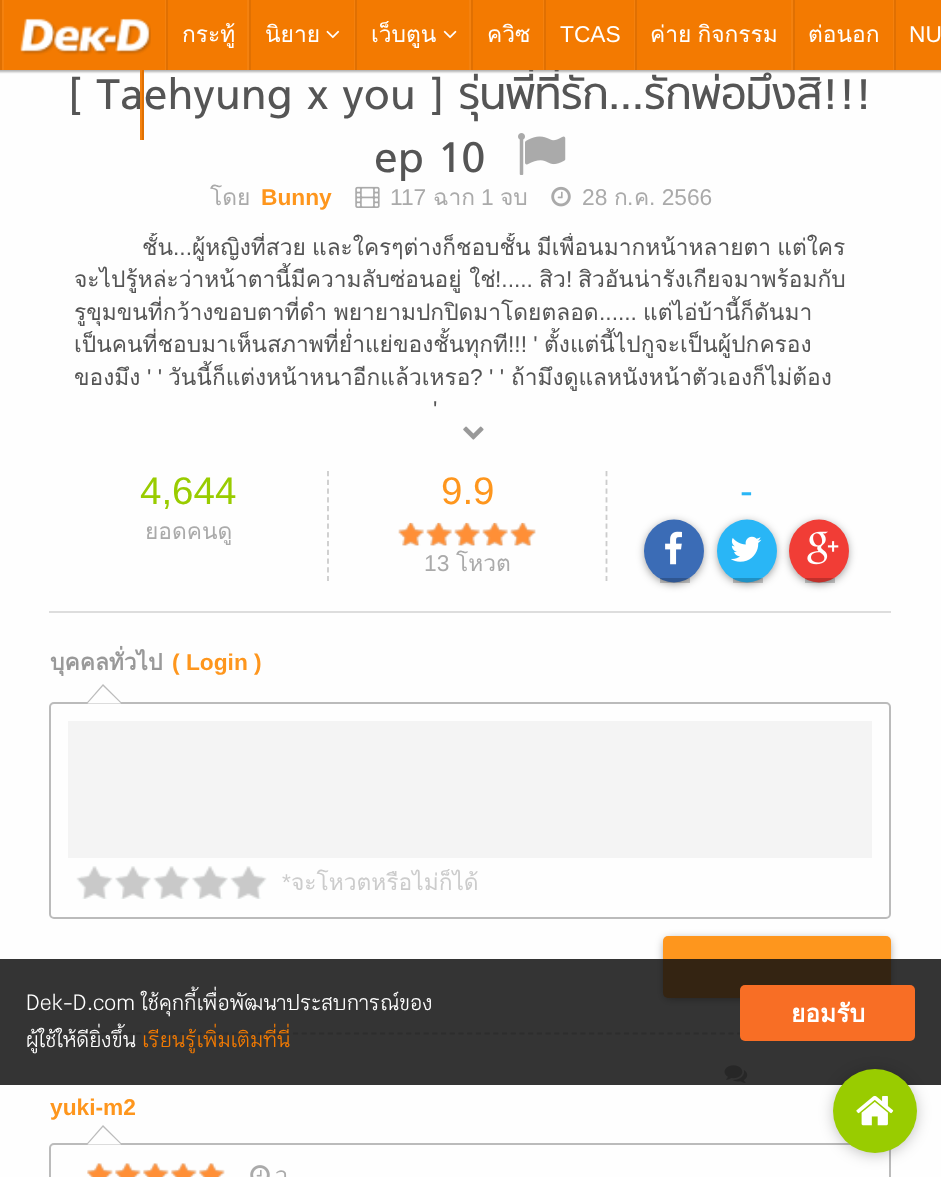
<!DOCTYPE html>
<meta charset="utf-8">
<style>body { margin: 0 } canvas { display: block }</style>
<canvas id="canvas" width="941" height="1177"></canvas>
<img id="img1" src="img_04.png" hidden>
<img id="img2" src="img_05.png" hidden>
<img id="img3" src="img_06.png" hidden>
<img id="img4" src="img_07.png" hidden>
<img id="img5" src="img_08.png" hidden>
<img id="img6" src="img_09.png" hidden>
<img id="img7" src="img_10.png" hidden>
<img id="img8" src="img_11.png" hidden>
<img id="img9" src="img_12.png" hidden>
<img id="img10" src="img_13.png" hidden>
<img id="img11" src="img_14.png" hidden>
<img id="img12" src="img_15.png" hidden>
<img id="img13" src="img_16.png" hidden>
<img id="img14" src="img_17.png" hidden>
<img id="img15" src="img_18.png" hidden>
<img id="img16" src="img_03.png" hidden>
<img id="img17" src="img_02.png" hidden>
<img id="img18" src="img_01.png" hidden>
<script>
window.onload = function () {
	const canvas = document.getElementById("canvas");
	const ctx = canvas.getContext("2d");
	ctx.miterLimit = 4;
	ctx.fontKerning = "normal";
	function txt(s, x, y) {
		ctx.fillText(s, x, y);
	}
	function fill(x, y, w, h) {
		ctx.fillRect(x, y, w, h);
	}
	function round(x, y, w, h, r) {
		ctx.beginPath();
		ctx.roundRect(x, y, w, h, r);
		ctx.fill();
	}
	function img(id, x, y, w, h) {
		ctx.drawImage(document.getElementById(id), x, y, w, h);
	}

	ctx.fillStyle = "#FEFEFE";
	fill(0, 0, 941, 1177);
	ctx.fillStyle = "rgba(0, 0, 0, 0.3)";
	ctx.filter = "blur(1px)";
	ctx.beginPath();
	ctx.rect(-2, -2, 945, 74);
	ctx.fill();
	ctx.filter = "none";
	ctx.fillStyle = "#F4810E";
	fill(2, 0, 2, 70);
	ctx.fillStyle = "#E07002";
	fill(0, 0, 2, 70);
	ctx.fillStyle = "#DDDDDD";
	fill(49, 611, 842, 2);
	img("img1", 518, 133, 48, 42);
	img("img2", 355, 186, 25, 22);
	img("img3", 551, 186, 20, 21);
	img("img4", 463, 426, 21, 14);
	ctx.beginPath();
	ctx.moveTo(606.5, 471);
	ctx.lineTo(606.5, 581);
	ctx.strokeStyle = "#CCCCCC";
	ctx.lineWidth = 1.8;
	ctx.setLineDash([5.25, 3.5]);
	ctx.stroke();
	ctx.beginPath();
	ctx.moveTo(328, 471);
	ctx.lineTo(328, 581);
	ctx.stroke();
	img("img5", 398, 523, 138, 23);
	img("img6", 398, 522, 138, 24);
	ctx.fillStyle = "rgba(0, 0, 0, 0.5)";
	ctx.filter = "blur(5px)";
	ctx.beginPath();
	ctx.roundRect(646, 523, 56, 60, 28);
	ctx.fill();
	ctx.filter = "none";
	ctx.fillStyle = "#3B6CB6";
	ctx.beginPath();
	ctx.ellipse(674, 551, 30, 31.5, 0, 0, Math.PI * 2);
	ctx.fill();
	ctx.fillStyle = "rgba(0, 0, 0, 0.2)";
	fill(660, 578, 30, 5);
	img("img7", 665, 531, 17, 34);
	ctx.fillStyle = "rgba(0, 0, 0, 0.5)";
	ctx.filter = "blur(5px)";
	ctx.beginPath();
	ctx.roundRect(719, 523, 56, 60, 28);
	ctx.fill();
	ctx.filter = "none";
	ctx.fillStyle = "#29B6F6";
	ctx.beginPath();
	ctx.ellipse(747, 551, 30, 31.5, 0, 0, Math.PI * 2);
	ctx.fill();
	ctx.fillStyle = "rgba(0, 0, 0, 0.2)";
	fill(733, 578, 30, 5);
	img("img8", 731, 536, 31, 26);
	ctx.fillStyle = "rgba(0, 0, 0, 0.5)";
	ctx.filter = "blur(5px)";
	ctx.beginPath();
	ctx.roundRect(791, 523, 56, 60, 28);
	ctx.fill();
	ctx.filter = "none";
	ctx.fillStyle = "#F13D36";
	ctx.beginPath();
	ctx.ellipse(819, 551, 30, 31.5, 0, 0, Math.PI * 2);
	ctx.fill();
	ctx.fillStyle = "rgba(0, 0, 0, 0.2)";
	fill(805, 578, 30, 5);
	img("img9", 807, 531, 32, 34);
	ctx.beginPath();
	ctx.moveTo(49, 1033.5);
	ctx.lineTo(891, 1033.5);
	ctx.setLineDash([5.25, 3.46]);
	ctx.stroke();
	ctx.beginPath();
	ctx.roundRect(50, 703, 840, 215, 4);
	ctx.strokeStyle = "#BBBBBB";
	ctx.lineWidth = 2;
	ctx.setLineDash([]);
	ctx.stroke();
	ctx.fillStyle = "#BBBBBB";
	ctx.beginPath();
	ctx.moveTo(122.5, 703.5);
	ctx.lineTo(86, 703.5);
	ctx.lineTo(103, 684);
	ctx.closePath();
	ctx.fill();
	ctx.fillStyle = "#FEFEFE";
	ctx.beginPath();
	ctx.moveTo(121, 703.5);
	ctx.lineTo(87.5, 703.5);
	ctx.lineTo(103, 686);
	ctx.closePath();
	ctx.fill();
	ctx.fillStyle = "#F4F4F4";
	fill(68, 721, 804, 137);
	img("img10", 76, 866, 191, 33);
	ctx.fillStyle = "rgba(0, 0, 0, 0.5)";
	ctx.filter = "blur(5px)";
	ctx.beginPath();
	ctx.roundRect(665, 940, 224, 58, 4);
	ctx.fill();
	ctx.filter = "none";
	ctx.fillStyle = "#FE961D";
	round(663, 936, 228, 62, 5);
	img("img11", 724, 1065, 24, 18);
	ctx.beginPath();
	ctx.roundRect(50, 1144, 840, 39, 4);
	ctx.stroke();
	ctx.fillStyle = "#BBBBBB";
	ctx.beginPath();
	ctx.moveTo(122.5, 1144.5);
	ctx.lineTo(86, 1144.5);
	ctx.lineTo(103, 1125);
	ctx.closePath();
	ctx.fill();
	ctx.fillStyle = "#FEFEFE";
	ctx.beginPath();
	ctx.moveTo(121, 1144.5);
	ctx.lineTo(87.5, 1144.5);
	ctx.lineTo(103, 1127);
	ctx.closePath();
	ctx.fill();
	img("img12", 87, 1163, 138, 14);
	img("img13", 87, 1163, 138, 14);
	img("img14", 250, 1165, 20, 12);
	ctx.fillStyle = "rgba(16, 16, 16, 0.85)";
	fill(0, 959, 941, 126);
	ctx.fillStyle = "rgba(0, 0, 0, 0.3)";
	ctx.filter = "blur(8px)";
	ctx.beginPath();
	ctx.roundRect(835, 1073, 80, 80, 40);
	ctx.fill();
	ctx.filter = "none";
	ctx.fillStyle = "#99CC00";
	ctx.beginPath();
	ctx.arc(875, 1111, 42, 0, Math.PI * 2);
	ctx.fill();
	img("img15", 856, 1095, 38, 31);
	ctx.fillStyle = "#F86E25";
	round(740, 985, 175, 56, 5);
	ctx.font = "49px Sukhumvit";
	ctx.fillStyle = "#555555";
	txt("[ Taehyung x you ] รุ่นพี่ที่รัก...รักพ่อมึงสิ!!!", 68, 109);
	ctx.fillStyle = "#E07002";
	fill(142, 70, 2, 70);
	ctx.fillStyle = "#F4810E";
	fill(140, 70, 2, 70);
	ctx.fillStyle = "#F37A01";
	fill(4, 0, 937, 70);
	ctx.font = "22.75px Liberation Sans";
	ctx.fillStyle = "#FFFFFF";
	txt("NU", 909, 42);
	ctx.font = "22.75px Loma";
	txt("ต่อนอก", 808, 42);
	ctx.fillStyle = "#E07002";
	fill(894, 0, 2, 70);
	ctx.fillStyle = "#F4810E";
	fill(893, 0, 1, 70);
	ctx.wordSpacing = "-1.5px";
	ctx.fillStyle = "#FFFFFF";
	txt("ค่าย กิจกรรม", 650, 42);
	ctx.fillStyle = "#E07002";
	fill(793, 0, 2, 70);
	ctx.fillStyle = "#F4810E";
	fill(791, 0, 2, 70);
	ctx.wordSpacing = "0px";
	ctx.font = "22.75px Liberation Sans";
	ctx.fillStyle = "#FFFFFF";
	txt("TCAS", 560, 42);
	ctx.fillStyle = "#E07002";
	fill(635, 0, 2, 70);
	ctx.fillStyle = "#F4810E";
	fill(634, 0, 1, 70);
	ctx.font = "22.75px Loma";
	ctx.fillStyle = "#FFFFFF";
	txt("ควิซ", 487, 42);
	ctx.fillStyle = "#E07002";
	fill(544, 0, 2, 70);
	ctx.fillStyle = "#F4810E";
	fill(543, 0, 1, 70);
	img("img16", 443, 30, 14, 9);
	ctx.fillStyle = "#FFFFFF";
	txt("เว็บตูน", 371, 42);
	ctx.fillStyle = "#E07002";
	fill(471, 0, 2, 70);
	ctx.fillStyle = "#F4810E";
	fill(469, 0, 2, 70);
	img("img17", 326, 30, 14, 9);
	ctx.fillStyle = "#FFFFFF";
	txt("นิยาย", 265, 42);
	ctx.fillStyle = "#E07002";
	fill(355, 0, 2, 70);
	ctx.fillStyle = "#F4810E";
	fill(354, 0, 1, 70);
	ctx.fillStyle = "#FFFFFF";
	txt("กระทู้", 182, 42);
	ctx.fillStyle = "#E07002";
	fill(249, 0, 2, 70);
	ctx.fillStyle = "#F4810E";
	fill(247, 0, 2, 70);
	img("img18", 20, 18, 131, 37);
	ctx.fillStyle = "#E07002";
	fill(166, 0, 2, 70);
	ctx.fillStyle = "#F4810E";
	fill(165, 0, 1, 70);
	ctx.font = "49px Sukhumvit";
	ctx.fillStyle = "#555555";
	txt("ep 10", 374, 172);
	ctx.font = "22.75px Loma";
	ctx.fillStyle = "#AAAAAA";
	txt("โดย", 210, 205);
	ctx.font = "bold 22.75px Liberation Sans";
	ctx.fillStyle = "#FE961D";
	txt("Bunny", 261, 205);
	ctx.font = "22.75px Liberation Sans";
	ctx.fillStyle = "#AAAAAA";
	txt("117", 390, 205);
	ctx.font = "22.75px Loma";
	txt("ฉาก", 433, 205);
	ctx.font = "22.75px Liberation Sans";
	txt("1", 481, 205);
	ctx.font = "22.75px Loma";
	txt("จบ", 500, 205);
	ctx.font = "22.75px Liberation Sans";
	txt("28", 582, 205);
	ctx.font = "22.75px Loma";
	txt("ก", 614, 205);
	ctx.font = "22.75px Liberation Sans";
	txt(".", 627, 205);
	ctx.font = "22.75px Loma";
	txt("ค", 634, 205);
	ctx.font = "22.75px Liberation Sans";
	txt(". 2566", 649, 205);
	ctx.save();
	ctx.beginPath();
	ctx.rect(49, 233, 824, 175);
	ctx.clip();
	ctx.font = "22.75px Loma";
	ctx.fillStyle = "#555555";
	txt("ชั้น", 142, 255);
	ctx.restore();
	ctx.fillStyle = "#555555";
	txt("...", 173, 255);
	ctx.save();
	ctx.beginPath();
	ctx.rect(49, 233, 824, 175);
	ctx.clip();
	ctx.wordSpacing = "-1.5px";
	ctx.font = "22.75px Loma";
	txt("ผู้หญิงที่สวย และใครๆต่างก็ชอบชั้น มีเพื่อนมากหน้าหลายตา แต่ใคร", 192, 255);
	ctx.restore();
	ctx.font = "22.75px Loma";
	txt("จะไปรู้หล่ะว่าหน้าตานี้มีความลับซ่อนอยู่ ใช่", 74, 287);
	ctx.font = "22.75px Liberation Sans";
	txt("!.....", 495, 287);
	ctx.font = "22.75px Loma";
	txt("สิว", 539, 287);
	ctx.font = "22.75px Liberation Sans";
	txt("!", 566, 287);
	ctx.font = "22.75px Loma";
	txt("สิวอันน่ารังเกียจมาพร้อมกับ", 578, 287);
	ctx.wordSpacing = "-1px";
	txt("รูขุมขนที่กว้างขอบตาที่ดำ พยายามปกปิดมาโดยตลอด", 74, 320);
	ctx.wordSpacing = "0px";
	ctx.font = "22.75px Liberation Sans";
	txt("......", 599, 320);
	ctx.font = "22.75px Loma";
	txt("แต่ไอ่บ้านี้ก็ดันมา", 643, 320);
	txt("เป็นคนที่ชอบมาเห็นสภาพที่ย่ำแย่ของชั้นทุกที", 74, 352);
	ctx.font = "22.75px Liberation Sans";
	txt("!!! '", 508, 352);
	ctx.font = "22.75px Loma";
	txt("ตั้งแต่นี้ไปกูจะเป็นผู้ปกครอง", 544, 352);
	txt("ของมึง", 74, 385);
	ctx.font = "22.75px Liberation Sans";
	txt("' '", 147, 385);
	ctx.font = "22.75px Loma";
	txt("วันนี้ก็แต่งหน้าหนาอีกแล้วเหรอ", 168, 385);
	ctx.font = "22.75px Liberation Sans";
	txt("? ' '", 470, 385);
	ctx.font = "22.75px Loma";
	txt("ถ้ามึงดูแลหนังหน้าตัวเองก็ไม่ต้อง", 511, 385);
	ctx.font = "22.75px Liberation Sans";
	txt("'", 433, 417);
	ctx.font = "38.5px Liberation Sans";
	ctx.fillStyle = "#99CC00";
	txt("4,644", 140, 504);
	ctx.font = "22.75px Loma";
	ctx.fillStyle = "#AAAAAA";
	txt("ยอดคนดู", 145, 539);
	ctx.font = "38.5px Liberation Sans";
	ctx.fillStyle = "#FE961D";
	txt("9.9", 441, 504);
	ctx.font = "22.75px Liberation Sans";
	ctx.fillStyle = "#AAAAAA";
	txt("13", 424, 571);
	ctx.font = "22.75px Loma";
	txt("โหวต", 456, 571);
	ctx.font = "38.5px Liberation Sans";
	ctx.fillStyle = "#29B6F6";
	txt("-", 740, 504);
	ctx.font = "bold 22.75px Loma";
	ctx.fillStyle = "#999999";
	txt("บุคคลทั่วไป", 50, 670);
	ctx.font = "bold 22.75px Liberation Sans";
	ctx.fillStyle = "#FE961D";
	txt("( Login )", 172, 670);
	ctx.font = "22.75px Liberation Sans";
	ctx.fillStyle = "#CCCCCC";
	txt("*", 282, 890);
	ctx.font = "22.75px Loma";
	txt("จะโหวตหรือไม่ก็ได้", 291, 890);
	ctx.font = "bold 22.75px Liberation Sans";
	ctx.fillStyle = "#FE961D";
	txt("yuki-m2", 50, 1115);
	ctx.font = "22.75px Loma";
	ctx.fillStyle = "#AAAAAA";
	txt("ว", 275, 1183);
	ctx.font = "24.5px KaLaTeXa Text";
	ctx.fillStyle = "#FFFFFF";
	txt("Dek-D.com ใช้คุกกี้เพื่อพัฒนาประสบการณ์ของ", 26, 1010);
	txt("ผู้ใช้ให้ดียิ่งขึ้น", 26, 1047);
	ctx.fillStyle = "#F37A01";
	txt("เรียนรู้เพิ่มเติมที่นี่", 142, 1047);
	ctx.font = "bold 24.5px Loma";
	ctx.fillStyle = "#FFFFFF";
	txt("ยอมรับ", 791, 1022);
};
</script>
